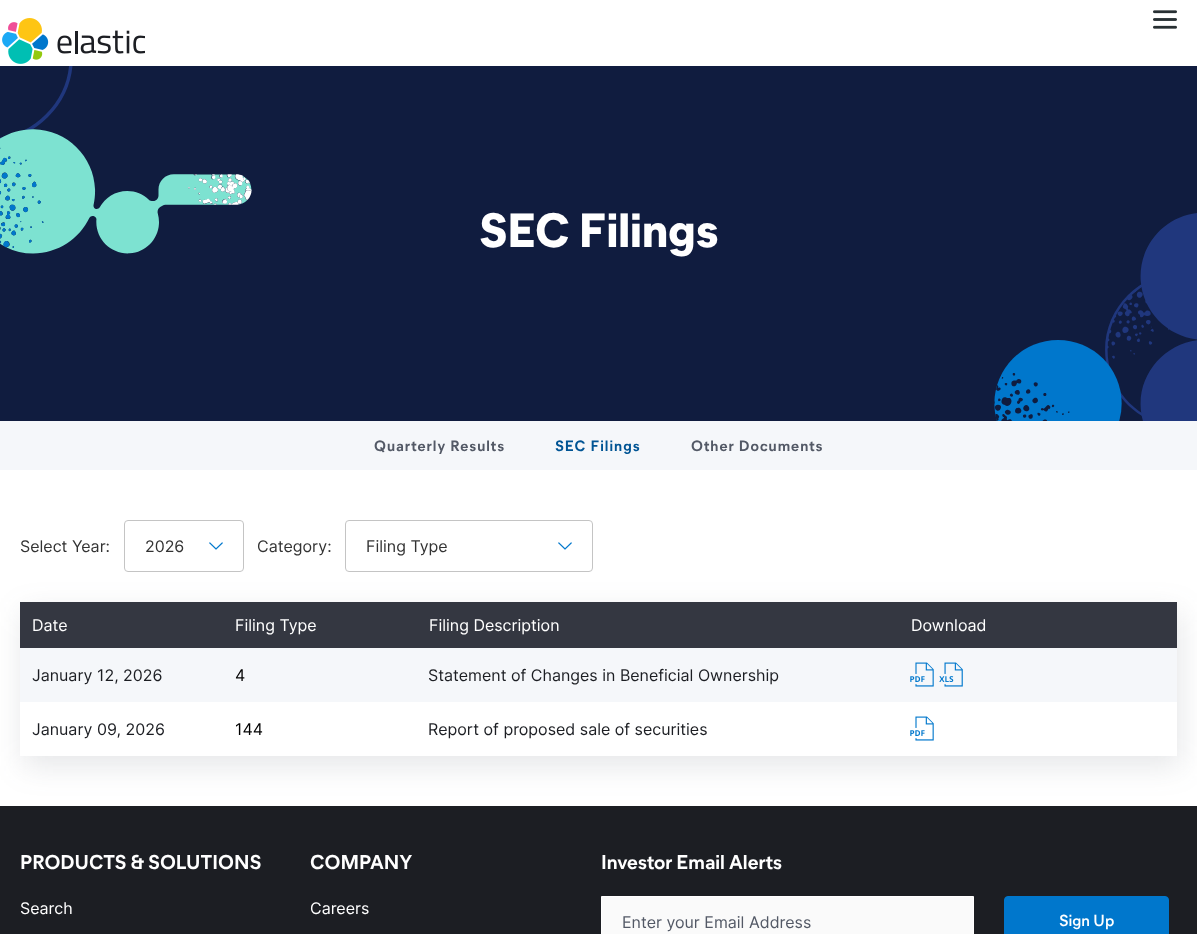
(async () => {
  const canvas = document.querySelector("canvas");
  canvas.width = 1197;
  canvas.height = 934;
  const ctx = canvas.getContext("2d");
  ctx.miterLimit = 4;
  ctx.fontKerning = "normal";
  async function loadImage(src) {
    const img = new Image();
    img.src = src;
    await img.decode();
    return img;
  }
  let path;

  ctx.fillStyle = "#ffffff";
  ctx.fillRect(0, 0, 1197, 934);
  ctx.drawImage(await loadImage("img/1.png"), 2, 18, 143, 46);
  ctx.drawImage(await loadImage("img/2.png"), 1153, 10, 24, 19);
  ctx.drawImage(await loadImage("img/3.png"), 0, 66, 1197, 355);
  ctx.fillStyle = "#f5f7fa";
  ctx.fillRect(0, 421, 1197, 49);
  ctx.drawImage(await loadImage("img/4.png"), 209, 542, 14, 8);
  ctx.save();
  path = new Path2D("M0 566H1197V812H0ZM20 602H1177V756H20Z");
  ctx.clip(path, "evenodd");
  ctx.fillStyle = "rgba(83, 89, 102, 0.15)";
  ctx.filter = "blur(15px)";
  ctx.beginPath();
  ctx.rect(23, 612, 1157, 154);
  ctx.fill();
  ctx.filter = "none";
  ctx.restore();
  ctx.beginPath();
  ctx.roundRect(124.5, 520.5, 119, 51, 3.5);
  ctx.strokeStyle = "#c4c4c4";
  ctx.stroke();
  ctx.drawImage(await loadImage("img/4.png"), 558, 542, 14, 8);
  ctx.beginPath();
  ctx.roundRect(345.5, 520.5, 247, 51, 3.5);
  ctx.stroke();
  ctx.fillStyle = "#343741";
  ctx.fillRect(20, 602, 1157, 46);
  ctx.fillStyle = "#f5f7fa";
  ctx.fillRect(20, 648, 1157, 54);
  ctx.drawImage(await loadImage("img/5.png"), 910, 662, 24, 25);
  ctx.drawImage(await loadImage("img/6.png"), 939, 662, 24, 25);
  ctx.drawImage(await loadImage("img/7.png"), 910, 716, 24, 25);
  ctx.fillStyle = "#1c1e23";
  ctx.fillRect(0, 806, 1197, 128);
  ctx.fillStyle = "#fafafa";
  ctx.beginPath();
  ctx.rect(601.5, 896.5, 372, 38);
  ctx.fill();
  ctx.strokeStyle = "#ffffff";
  ctx.stroke();
  ctx.fillStyle = "#0077cc";
  ctx.beginPath();
  ctx.roundRect(1004.5, 896.5, 164, 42, 3.5);
  ctx.fill();
  ctx.strokeStyle = "#0077cc";
  ctx.stroke();
  ctx.font = "bold 48px 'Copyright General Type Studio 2'";
  ctx.fillStyle = "#ffffff";
  ctx.fillText("SEC Filings", 479, 247);
  ctx.letterSpacing = "1px";
  ctx.font = "bold 15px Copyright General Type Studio";
  ctx.fillStyle = "#535966";
  ctx.fillText("Quarterly Results", 374, 451);
  ctx.fillStyle = "#005494";
  ctx.fillText("SEC Filings", 555, 451);
  ctx.fillStyle = "#535966";
  ctx.fillText("Other Documents", 691, 451);
  ctx.letterSpacing = "0px";
  ctx.font = "16px Inter";
  ctx.fillStyle = "#333333";
  for (const [text, x, y] of [
    ["Select Year:", 20, 552],
    ["2026", 145, 552],
    ["Category:", 257, 552],
    ["Filing Type", 366, 552],
  ]) {
    ctx.fillText(text, x, y);
  }
  ctx.fillStyle = "#ffffff";
  for (const [text, x, y] of [
    ["Date", 32, 631],
    ["Filing Type", 235, 631],
    ["Filing Description", 429, 631],
    ["Download", 911, 631],
  ]) {
    ctx.fillText(text, x, y);
  }
  ctx.fillStyle = "#1c1e23";
  ctx.fillText("January 12, 2026", 32, 681);
  ctx.fillStyle = "#000000";
  ctx.fillText("4", 235, 681);
  ctx.fillStyle = "#1c1e23";
  ctx.fillText("Statement of Changes in Beneficial Ownership", 428, 681);
  ctx.fillText("January 09, 2026", 32, 735);
  ctx.fillStyle = "#000000";
  ctx.fillText("144", 235, 735);
  ctx.fillStyle = "#1c1e23";
  ctx.fillText("Report of proposed sale of securities", 428, 735);
  ctx.font = "bold 20px Copyright General Type Studio";
  ctx.fillStyle = "#ffffff";
  ctx.fillText("PRODUCTS & SOLUTIONS", 20, 869);
  ctx.font = "16px Inter";
  ctx.fillText("Search", 20, 914);
  ctx.font = "bold 20px Copyright General Type Studio";
  ctx.fillText("COMPANY", 310, 869);
  ctx.font = "16px Inter";
  ctx.fillText("Careers", 310, 914);
  ctx.font = "bold 20px Copyright General Type Studio";
  ctx.fillText("Investor Email Alerts", 601, 869);
  ctx.font = "16px Inter";
  ctx.fillStyle = "#535966";
  ctx.fillText("Enter your Email Address", 622, 928);
  ctx.font = "600 16px Copyright General Type Studio";
  ctx.fillStyle = "#ffffff";
  ctx.fillText("Sign Up", 1059, 926);
})();
